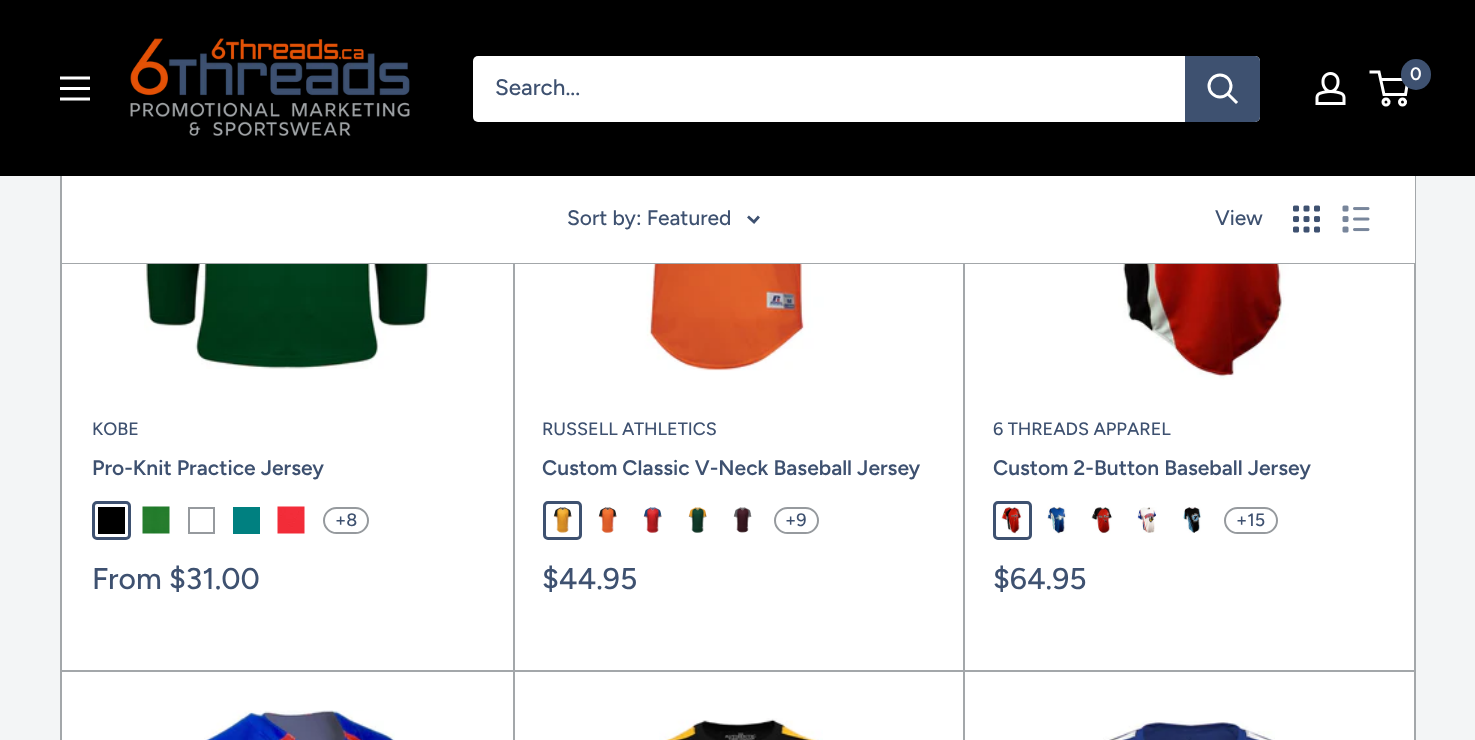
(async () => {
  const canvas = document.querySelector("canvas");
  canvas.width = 1475;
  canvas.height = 740;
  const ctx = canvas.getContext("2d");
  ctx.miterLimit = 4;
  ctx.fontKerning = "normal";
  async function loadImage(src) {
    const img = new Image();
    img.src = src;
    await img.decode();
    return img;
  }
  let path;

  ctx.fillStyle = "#f3f5f6";
  ctx.fillRect(0, 0, 1475, 740);
  ctx.strokeStyle = "#a3a7aa";
  ctx.lineWidth = 2;
  ctx.strokeRect(61, -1, 1354, 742);
  ctx.fillStyle = "#ffffff";
  ctx.fillRect(62, 264, 1352, 476);
  ctx.fillStyle = "#a3a7aa";
  ctx.fillRect(62, 670, 451, 2);
  ctx.drawImage(await loadImage("img/6.png"), 144, 264, 287, 105);
  ctx.fillStyle = "#000000";
  ctx.fillRect(98, 507, 27, 27);
  ctx.beginPath();
  ctx.roundRect(93.5, 502.5, 36, 36, 3.5);
  ctx.strokeStyle = "#3e5170";
  ctx.lineWidth = 3;
  ctx.stroke();
  ctx.drawImage(await loadImage("img/7.png"), 142, 506, 28, 28);
  ctx.strokeStyle = "#969a9e";
  ctx.lineWidth = 2;
  ctx.strokeRect(189, 508, 25, 25);
  ctx.fillStyle = "#008080";
  ctx.fillRect(233, 507, 27, 27);
  ctx.drawImage(await loadImage("img/8.png"), 277, 506, 28, 28);
  ctx.beginPath();
  ctx.roundRect(324, 508, 44, 25, 12.5);
  ctx.stroke();
  ctx.drawImage(await loadImage("img/9.png"), 619, 264, 236, 107);
  ctx.drawImage(await loadImage("img/10.png"), 553, 507, 19, 26);
  ctx.beginPath();
  ctx.roundRect(544.5, 502.5, 36, 36, 3.5);
  ctx.strokeStyle = "#3e5170";
  ctx.lineWidth = 3;
  ctx.stroke();
  ctx.drawImage(await loadImage("img/11.png"), 598, 507, 19, 26);
  ctx.drawImage(await loadImage("img/12.png"), 643, 507, 19, 26);
  ctx.drawImage(await loadImage("img/13.png"), 688, 507, 19, 26);
  ctx.drawImage(await loadImage("img/14.png"), 733, 507, 19, 26);
  ctx.beginPath();
  ctx.roundRect(775, 508, 43, 25, 12.5);
  ctx.strokeStyle = "#969a9e";
  ctx.lineWidth = 2;
  ctx.stroke();
  ctx.drawImage(await loadImage("img/15.png"), 1035, 264, 282, 116);
  ctx.drawImage(await loadImage("img/16.png"), 1001, 506, 22, 28);
  ctx.beginPath();
  ctx.roundRect(994.5, 502.5, 36, 36, 3.5);
  ctx.strokeStyle = "#3e5170";
  ctx.lineWidth = 3;
  ctx.stroke();
  ctx.drawImage(await loadImage("img/17.png"), 1047, 506, 20, 28);
  ctx.drawImage(await loadImage("img/18.png"), 1091, 507, 22, 27);
  ctx.drawImage(await loadImage("img/19.png"), 1137, 507, 20, 26);
  ctx.drawImage(await loadImage("img/20.png"), 1183, 507, 19, 26);
  ctx.beginPath();
  ctx.roundRect(1225, 508, 52, 25, 12.5);
  ctx.strokeStyle = "#969a9e";
  ctx.lineWidth = 2;
  ctx.stroke();
  ctx.drawImage(await loadImage("img/21.png"), 204, 710, 191, 30);
  ctx.drawImage(await loadImage("img/22.png"), 659, 718, 164, 22);
  ctx.drawImage(await loadImage("img/23.png"), 1103, 720, 172, 20);
  ctx.font = "500 18px Figtree";
  ctx.fillStyle = "#3e5170";
  ctx.fillText("KOBE", 92, 435);
  ctx.font = "600 21px Figtree";
  ctx.fillText("Pro-Knit Practice Jersey", 92, 475);
  ctx.font = "500 18px Figtree";
  ctx.fillText("+8", 335, 526);
  ctx.font = "500 30px Figtree";
  ctx.fillText("From $31.00", 92, 589);
  ctx.fillStyle = "#a3a7aa";
  path = new Path2D("M63 670V671H515V-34H513V670Z");
  ctx.fill(path);
  ctx.fillRect(513, 670, 450, 2);
  ctx.font = "500 18px Figtree";
  ctx.fillStyle = "#3e5170";
  ctx.fillText("RUSSELL ATHLETICS", 542, 435);
  ctx.font = "600 21px Figtree";
  ctx.fillText("Custom Classic V-Neck Baseball Jersey", 542, 475);
  ctx.font = "500 18px Figtree";
  ctx.fillText("+9", 785, 526);
  ctx.font = "500 30px Figtree";
  ctx.fillText("$44.95", 542, 589);
  ctx.fillStyle = "#a3a7aa";
  path = new Path2D("M515 670V671H965V-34H963V670Z");
  ctx.fill(path);
  ctx.font = "500 18px Figtree";
  ctx.fillStyle = "#3e5170";
  ctx.fillText("6 THREADS APPAREL", 993, 435);
  ctx.font = "600 21px Figtree";
  ctx.fillText("Custom 2-Button Baseball Jersey", 993, 475);
  ctx.font = "500 18px Figtree";
  ctx.fillText("+15", 1236, 526);
  ctx.font = "500 30px Figtree";
  ctx.fillText("$64.95", 993, 589);
  ctx.fillStyle = "#a3a7aa";
  path = new Path2D("M963 670V672H1415V-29L1414-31V670Z");
  ctx.fill(path);
  ctx.fillStyle = "#000000";
  ctx.fillRect(0, 0, 1475, 176);
  path = new Path2D("M1380.5 79.5H1408L1405.5 94.5H1384L1379 72H1369.5");
  ctx.strokeStyle = "#ffffff";
  ctx.lineWidth = 3;
  ctx.stroke(path);
  ctx.fillStyle = "#3e5170";
  ctx.beginPath();
  ctx.roundRect(1401, 59, 30, 31, 15);
  ctx.fill();
  ctx.font = "600 18px Figtree";
  ctx.fillStyle = "#ffffff";
  ctx.fillText("0", 1410, 80);
  ctx.beginPath();
  ctx.roundRect(473, 56, 787, 66, 5);
  ctx.fill();
  ctx.fillStyle = "#3e5170";
  ctx.beginPath();
  ctx.roundRect(1185, 56, 75, 66, [0, 5, 5, 0]);
  ctx.fill();
  path = new Path2D("M1236 102L1228.5 94.5");
  ctx.lineCap = "square";
  ctx.stroke(path);
  ctx.beginPath();
  ctx.arc(1220, 86, 11, 0, Math.PI * 2);
  ctx.stroke();
  ctx.font = "500 22.5px Figtree";
  ctx.fillText("Search...", 495, 95);
  ctx.beginPath();
  ctx.arc(1402.5, 102, 3, 0, Math.PI * 2);
  ctx.stroke();
  ctx.beginPath();
  ctx.arc(1386, 102, 3, 0, Math.PI * 2);
  ctx.stroke();
  ctx.drawImage(await loadImage("img/2.png"), 1315, 72, 31, 33);
  ctx.drawImage(await loadImage("img/3.png"), 60, 76, 30, 25);
  ctx.drawImage(await loadImage("img/1.png"), 130, 38, 280, 98);
  ctx.fillStyle = "#a3a7aa";
  path = new Path2D("M62 262V264H1415V177H1414V262Z");
  ctx.fill(path);
  ctx.fillStyle = "#ffffff";
  ctx.fillRect(62, 176, 1353, 87);
  ctx.drawImage(await loadImage("img/5.png"), 1342, 205, 28, 28);
  path = new Path2D("M758 217.5L754 222L749 217.5");
  ctx.strokeStyle = "#3e5170";
  ctx.lineWidth = 2.8;
  ctx.stroke(path);
  ctx.font = "500 21px Figtree";
  ctx.fillStyle = "#3e5170";
  ctx.fillText("Sort by: Featured", 567, 225);
  ctx.drawImage(await loadImage("img/4.png"), 1293, 205, 27, 28);
  ctx.fillText("View", 1215, 225);
  ctx.fillStyle = "#a3a7aa";
  path = new Path2D("M63 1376H515V671H513V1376Z");
  ctx.fill(path);
  path = new Path2D("M515 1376H965V671H963V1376Z");
  ctx.fill(path);
})();
